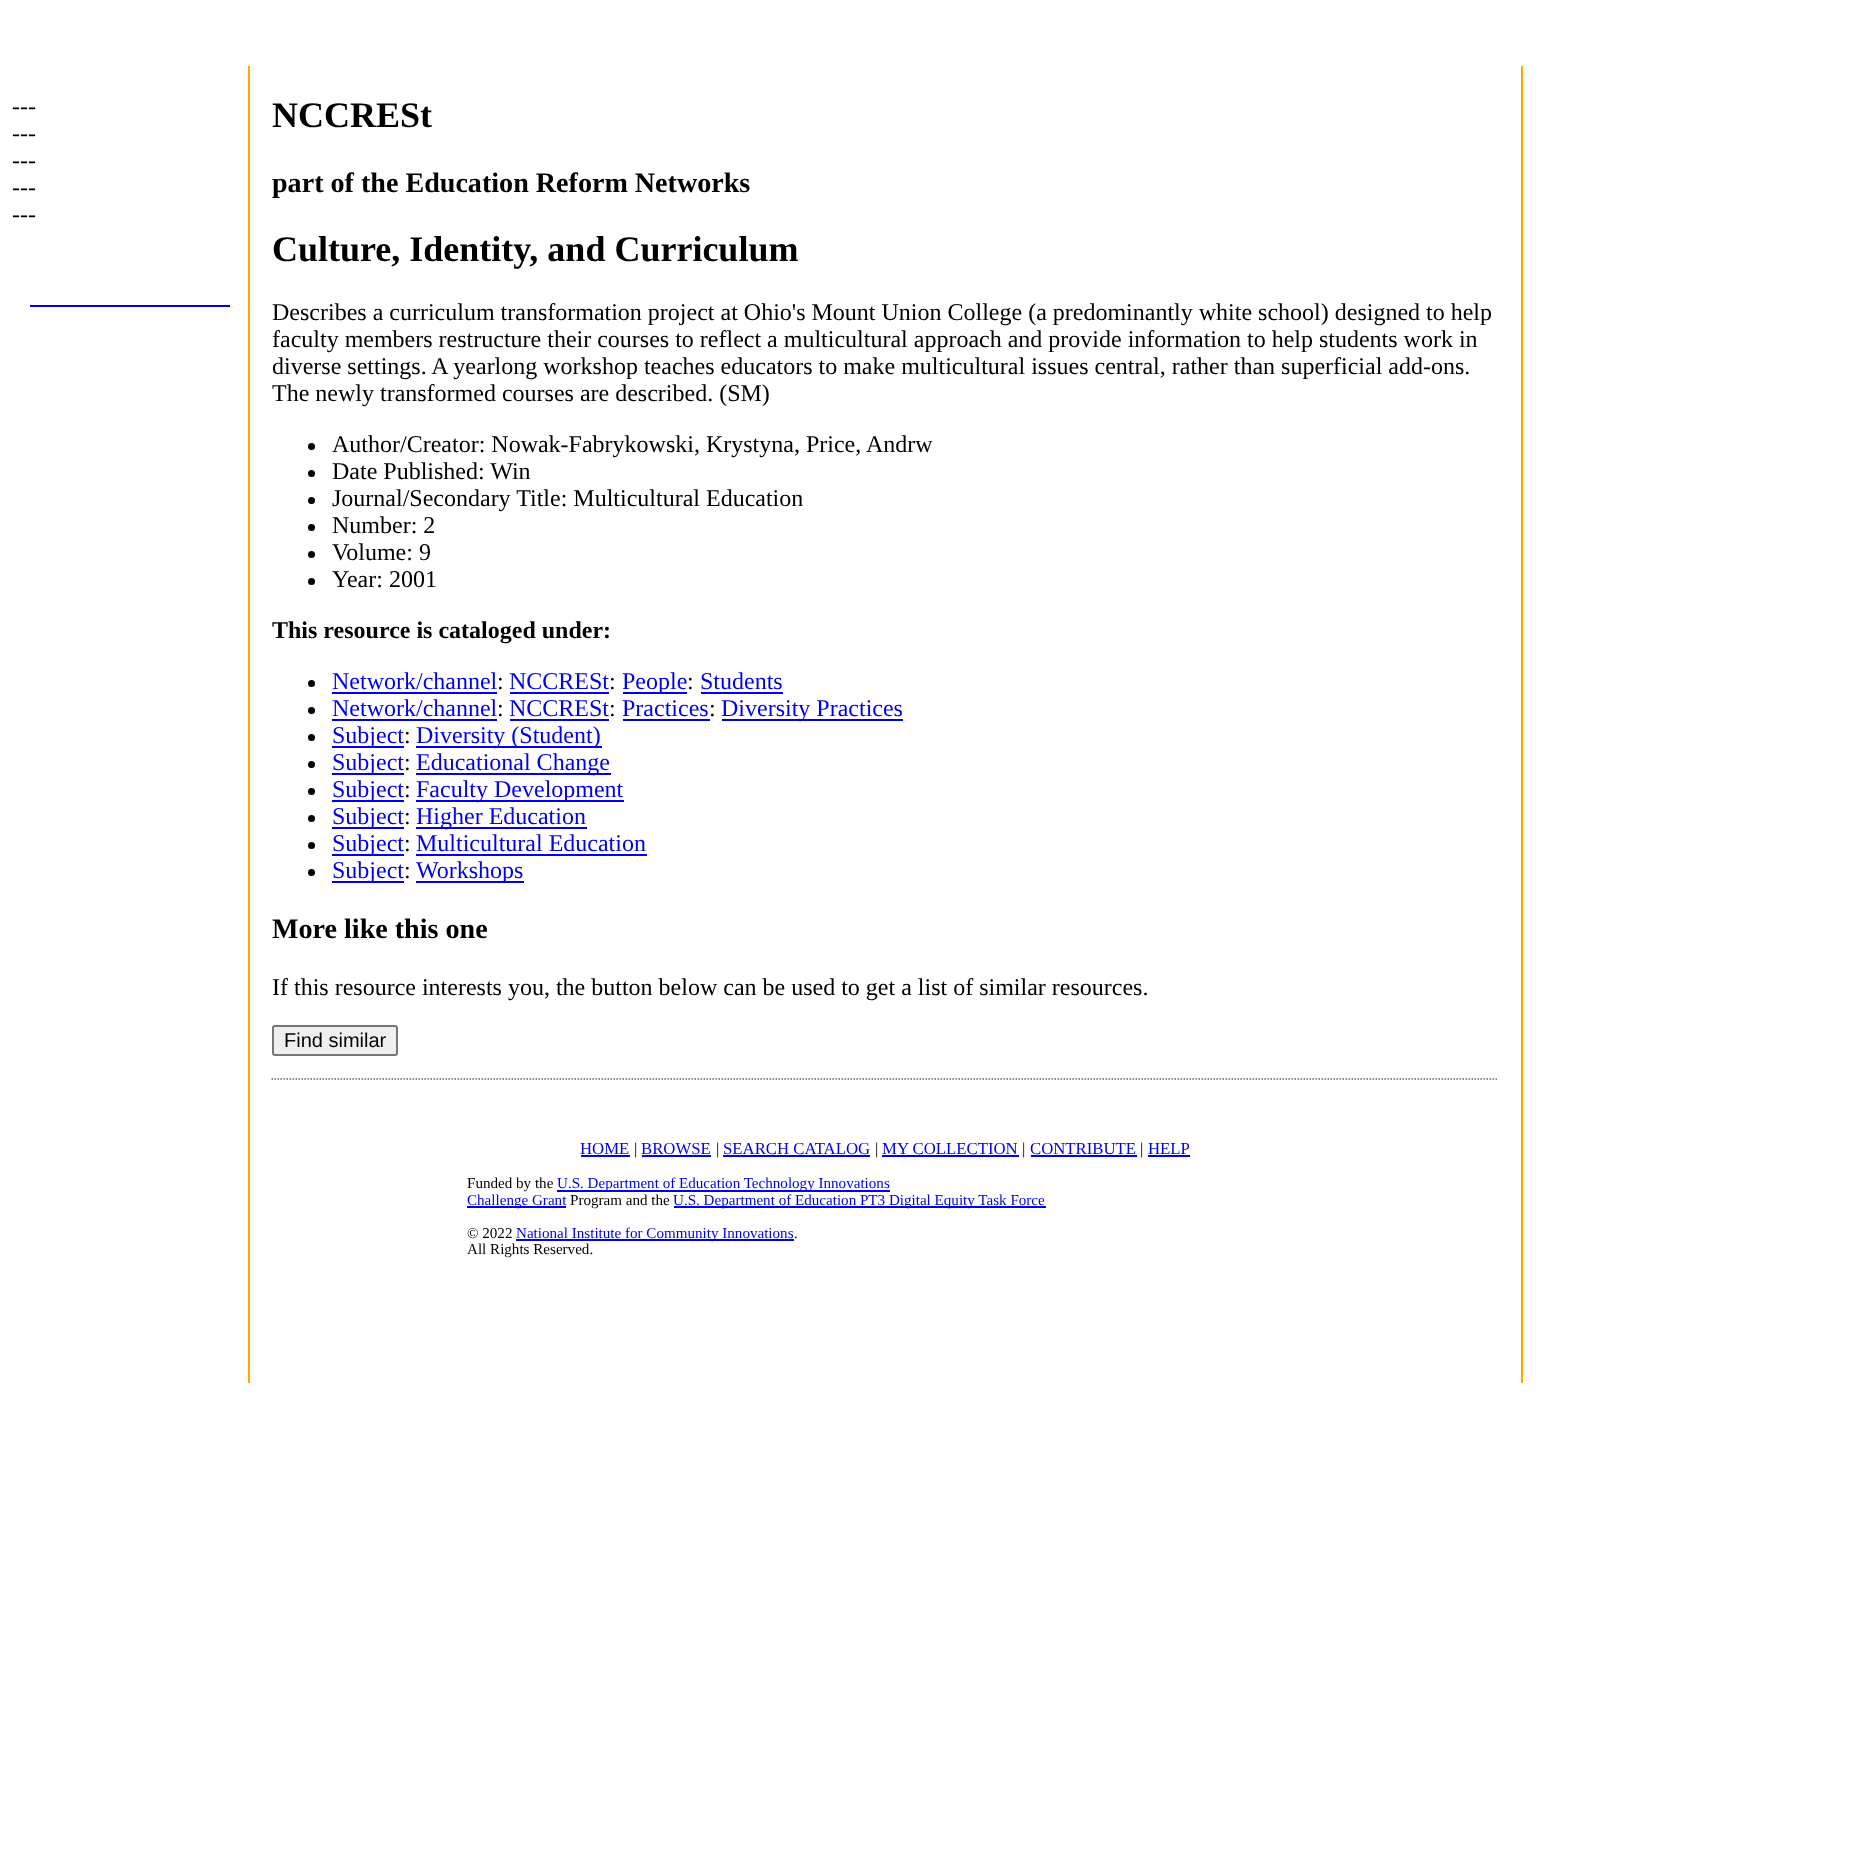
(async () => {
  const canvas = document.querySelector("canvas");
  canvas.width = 1859;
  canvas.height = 1857;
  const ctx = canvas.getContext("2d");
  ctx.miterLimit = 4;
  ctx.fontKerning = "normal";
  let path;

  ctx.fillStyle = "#ffffff";
  ctx.fillRect(0, 0, 1859, 1857);
  for (const [x, y, w, h, color] of [
    [30, 305, 200, 2, "#0000ee"],
    [1521, 66, 2, 1317, "#ffa901"],
    [248, 66, 2, 1317, "#ffa901"],
  ]) {
    ctx.fillStyle = color;
    ctx.fillRect(x, y, w, h);
  }
  ctx.fillStyle = "#000000";
  ctx.beginPath();
  ctx.arc(311.5, 446.5, 3.5, 0, Math.PI * 2);
  ctx.fill();
  ctx.beginPath();
  ctx.arc(311.5, 473.5, 3.5, 0, Math.PI * 2);
  ctx.fill();
  ctx.beginPath();
  ctx.arc(311.5, 500.5, 3.5, 0, Math.PI * 2);
  ctx.fill();
  ctx.beginPath();
  ctx.arc(311.5, 527.5, 3.5, 0, Math.PI * 2);
  ctx.fill();
  ctx.beginPath();
  ctx.arc(311.5, 554.5, 3.5, 0, Math.PI * 2);
  ctx.fill();
  ctx.beginPath();
  ctx.arc(311.5, 581.5, 3.5, 0, Math.PI * 2);
  ctx.fill();
  ctx.beginPath();
  ctx.arc(311.5, 683.5, 3.5, 0, Math.PI * 2);
  ctx.fill();
  for (const [x, y, w, h, color] of [
    [332, 692, 165, 2, "#0000ee"],
    [510, 692, 99, 2, "#0000ee"],
    [623, 692, 64, 2, "#0000ee"],
    [701, 692, 82, 2, "#0000ee"],
  ]) {
    ctx.fillStyle = color;
    ctx.fillRect(x, y, w, h);
  }
  ctx.fillStyle = "#000000";
  ctx.beginPath();
  ctx.arc(311.5, 710.5, 3.5, 0, Math.PI * 2);
  ctx.fill();
  for (const [x, y, w, h, color] of [
    [332, 719, 165, 2, "#0000ee"],
    [510, 719, 99, 2, "#0000ee"],
    [623, 719, 87, 2, "#0000ee"],
    [722, 719, 181, 2, "#0000ee"],
  ]) {
    ctx.fillStyle = color;
    ctx.fillRect(x, y, w, h);
  }
  ctx.fillStyle = "#000000";
  ctx.beginPath();
  ctx.arc(311.5, 737.5, 3.5, 0, Math.PI * 2);
  ctx.fill();
  ctx.fillStyle = "#0000ee";
  ctx.fillRect(332, 746, 72, 2);
  ctx.fillRect(416, 746, 186, 2);
  ctx.fillStyle = "#000000";
  ctx.beginPath();
  ctx.arc(311.5, 764.5, 3.5, 0, Math.PI * 2);
  ctx.fill();
  ctx.fillStyle = "#0000ee";
  ctx.fillRect(332, 773, 72, 2);
  ctx.fillRect(416, 773, 195, 2);
  ctx.fillStyle = "#000000";
  ctx.beginPath();
  ctx.arc(311.5, 791.5, 3.5, 0, Math.PI * 2);
  ctx.fill();
  ctx.fillStyle = "#0000ee";
  ctx.fillRect(332, 800, 72, 2);
  ctx.fillRect(416, 800, 208, 2);
  ctx.fillStyle = "#000000";
  ctx.beginPath();
  ctx.arc(311.5, 818.5, 3.5, 0, Math.PI * 2);
  ctx.fill();
  ctx.fillStyle = "#0000ee";
  ctx.fillRect(332, 827, 72, 2);
  ctx.fillRect(416, 827, 171, 2);
  ctx.fillStyle = "#000000";
  ctx.beginPath();
  ctx.arc(311.5, 845.5, 3.5, 0, Math.PI * 2);
  ctx.fill();
  ctx.fillStyle = "#0000ee";
  ctx.fillRect(332, 854, 72, 2);
  ctx.fillRect(416, 854, 231, 2);
  ctx.fillStyle = "#000000";
  ctx.beginPath();
  ctx.arc(311.5, 872.5, 3.5, 0, Math.PI * 2);
  ctx.fill();
  ctx.fillStyle = "#0000ee";
  ctx.fillRect(332, 881, 72, 2);
  ctx.fillRect(416, 881, 108, 2);
  ctx.fillStyle = "#efefef";
  ctx.beginPath();
  ctx.roundRect(273, 1026, 124, 29, 2);
  ctx.fill();
  ctx.strokeStyle = "#767676";
  ctx.lineWidth = 2;
  ctx.stroke();
  path = new Path2D("M271.5 1079H1498.5");
  ctx.strokeStyle = "#666666";
  ctx.lineWidth = 1.5;
  ctx.setLineDash([1.5, 1.5]);
  ctx.stroke(path);
  for (const [x, y, w, h, color] of [
    [581, 1155, 49, 2, "#0000ee"],
    [642, 1155, 69, 2, "#0000ee"],
    [723, 1155, 147, 2, "#0000ee"],
    [882, 1155, 137, 2, "#0000ee"],
    [1031, 1155, 106, 2, "#0000ee"],
    [1148, 1155, 42, 2, "#0000ee"],
    [557, 1190, 333, 2, "#0000ee"],
    [467, 1206, 99, 2, "#0000ee"],
    [674, 1206, 372, 2, "#0000ee"],
    [516, 1239, 278, 2, "#0000ee"],
  ]) {
    ctx.fillStyle = color;
    ctx.fillRect(x, y, w, h);
  }
  ctx.font = "24px Liberation Serif";
  ctx.fillStyle = "#000000";
  for (const [text, x, y] of [
    ["---", 12, 114],
    ["---", 12, 141],
    ["---", 12, 168],
    ["---", 12, 195],
    ["---", 12, 222],
  ]) {
    ctx.fillText(text, x, y);
  }
  ctx.font = "bold 36px Liberation Serif";
  ctx.fillText("NCCRESt", 272, 127);
  ctx.font = "bold 28.1px Liberation Serif";
  ctx.fillText("part of the Education Reform Networks", 272, 192);
  ctx.font = "bold 36px Liberation Serif";
  ctx.fillText("Culture, Identity, and Curriculum", 272, 261);
  ctx.font = "24px Liberation Serif";
  for (const [text, x, y] of [
    ["Describes a curriculum transformation project at Ohio's Mount Union College (a predominantly white school) designed to help", 272, 320],
    ["faculty members restructure their courses to reflect a multicultural approach and provide information to help students work in", 272, 347],
    ["diverse settings. A yearlong workshop teaches educators to make multicultural issues central, rather than superficial add-ons.", 272, 374],
    ["The newly transformed courses are described. (SM)", 272, 401],
    ["Author/Creator: Nowak-Fabrykowski, Krystyna, Price, Andrw", 332, 452],
    ["Date Published: Win", 332, 479],
    ["Journal/Secondary Title: Multicultural Education", 332, 506],
    ["Number: 2", 332, 533],
    ["Volume: 9", 332, 560],
    ["Year: 2001", 332, 587],
  ]) {
    ctx.fillText(text, x, y);
  }
  ctx.font = "bold 24px Liberation Serif";
  ctx.fillText("This resource is cataloged under:", 272, 638);
  ctx.font = "24px Liberation Serif";
  ctx.fillStyle = "#0000ee";
  ctx.fillText("Network/channel", 332, 689);
  ctx.fillStyle = "#000000";
  ctx.fillText(":", 497, 689);
  ctx.fillStyle = "#0000ee";
  ctx.fillText("NCCRESt", 509, 689);
  ctx.fillStyle = "#000000";
  ctx.fillText(":", 609, 689);
  ctx.fillStyle = "#0000ee";
  ctx.fillText("People", 622, 689);
  ctx.fillStyle = "#000000";
  ctx.fillText(":", 687, 689);
  ctx.fillStyle = "#0000ee";
  ctx.fillText("Students", 700, 689);
  ctx.fillText("Network/channel", 332, 716);
  ctx.fillStyle = "#000000";
  ctx.fillText(":", 497, 716);
  ctx.fillStyle = "#0000ee";
  ctx.fillText("NCCRESt", 509, 716);
  ctx.fillStyle = "#000000";
  ctx.fillText(":", 609, 716);
  ctx.fillStyle = "#0000ee";
  ctx.fillText("Practices", 622, 716);
  ctx.fillStyle = "#000000";
  ctx.fillText(":", 709, 716);
  ctx.fillStyle = "#0000ee";
  ctx.fillText("Diversity Practices", 721, 716);
  ctx.fillText("Subject", 332, 743);
  ctx.fillStyle = "#000000";
  ctx.fillText(":", 404, 743);
  ctx.fillStyle = "#0000ee";
  ctx.fillText("Diversity (Student)", 416, 743);
  ctx.fillText("Subject", 332, 770);
  ctx.fillStyle = "#000000";
  ctx.fillText(":", 404, 770);
  ctx.fillStyle = "#0000ee";
  ctx.fillText("Educational Change", 416, 770);
  ctx.fillText("Subject", 332, 797);
  ctx.fillStyle = "#000000";
  ctx.fillText(":", 404, 797);
  ctx.fillStyle = "#0000ee";
  ctx.fillText("Faculty Development", 416, 797);
  ctx.fillText("Subject", 332, 824);
  ctx.fillStyle = "#000000";
  ctx.fillText(":", 404, 824);
  ctx.fillStyle = "#0000ee";
  ctx.fillText("Higher Education", 416, 824);
  ctx.fillText("Subject", 332, 851);
  ctx.fillStyle = "#000000";
  ctx.fillText(":", 404, 851);
  ctx.fillStyle = "#0000ee";
  ctx.fillText("Multicultural Education", 416, 851);
  ctx.fillText("Subject", 332, 878);
  ctx.fillStyle = "#000000";
  ctx.fillText(":", 404, 878);
  ctx.fillStyle = "#0000ee";
  ctx.fillText("Workshops", 416, 878);
  ctx.font = "bold 28.1px Liberation Serif";
  ctx.fillStyle = "#000000";
  ctx.fillText("More like this one", 272, 938);
  ctx.font = "24px Liberation Serif";
  ctx.fillText("If this resource interests you, the button below can be used to get a list of similar resources.", 272, 995);
  ctx.font = "20px Liberation Sans";
  ctx.fillText("Find similar", 284, 1047);
  ctx.font = "16.75px Liberation Serif";
  ctx.fillStyle = "#0000ee";
  ctx.fillText("HOME", 580, 1154);
  ctx.fillStyle = "#000000";
  ctx.fillText("|", 634, 1154);
  ctx.fillStyle = "#0000ee";
  ctx.fillText("BROWSE", 641, 1154);
  ctx.fillStyle = "#000000";
  ctx.fillText("|", 716, 1154);
  ctx.fillStyle = "#0000ee";
  ctx.fillText("SEARCH CATALOG", 723, 1154);
  ctx.fillStyle = "#000000";
  ctx.fillText("|", 875, 1154);
  ctx.fillStyle = "#0000ee";
  ctx.fillText("MY COLLECTION", 882, 1154);
  ctx.fillStyle = "#000000";
  ctx.fillText("|", 1022, 1154);
  ctx.fillStyle = "#0000ee";
  ctx.fillText("CONTRIBUTE", 1030, 1154);
  ctx.fillStyle = "#000000";
  ctx.fillText("|", 1140, 1154);
  ctx.fillStyle = "#0000ee";
  ctx.fillText("HELP", 1148, 1154);
  ctx.font = "15.1px Liberation Serif";
  ctx.fillStyle = "#000000";
  ctx.fillText("Funded by the", 467, 1188);
  ctx.fillStyle = "#0000ee";
  ctx.fillText("U.S. Department of Education Technology Innovations", 557, 1188);
  ctx.fillText("Challenge Grant", 467, 1205);
  ctx.fillStyle = "#000000";
  ctx.fillText("Program and the", 570, 1205);
  ctx.fillStyle = "#0000ee";
  ctx.fillText("U.S. Department of Education PT3 Digital Equity Task Force", 673, 1205);
  ctx.fillStyle = "#000000";
  ctx.fillText("© 2022", 467, 1238);
  ctx.fillStyle = "#0000ee";
  ctx.fillText("National Institute for Community Innovations", 516, 1238);
  ctx.fillStyle = "#000000";
  ctx.fillText(".", 794, 1238);
  ctx.fillText("All Rights Reserved.", 467, 1254);
})();
